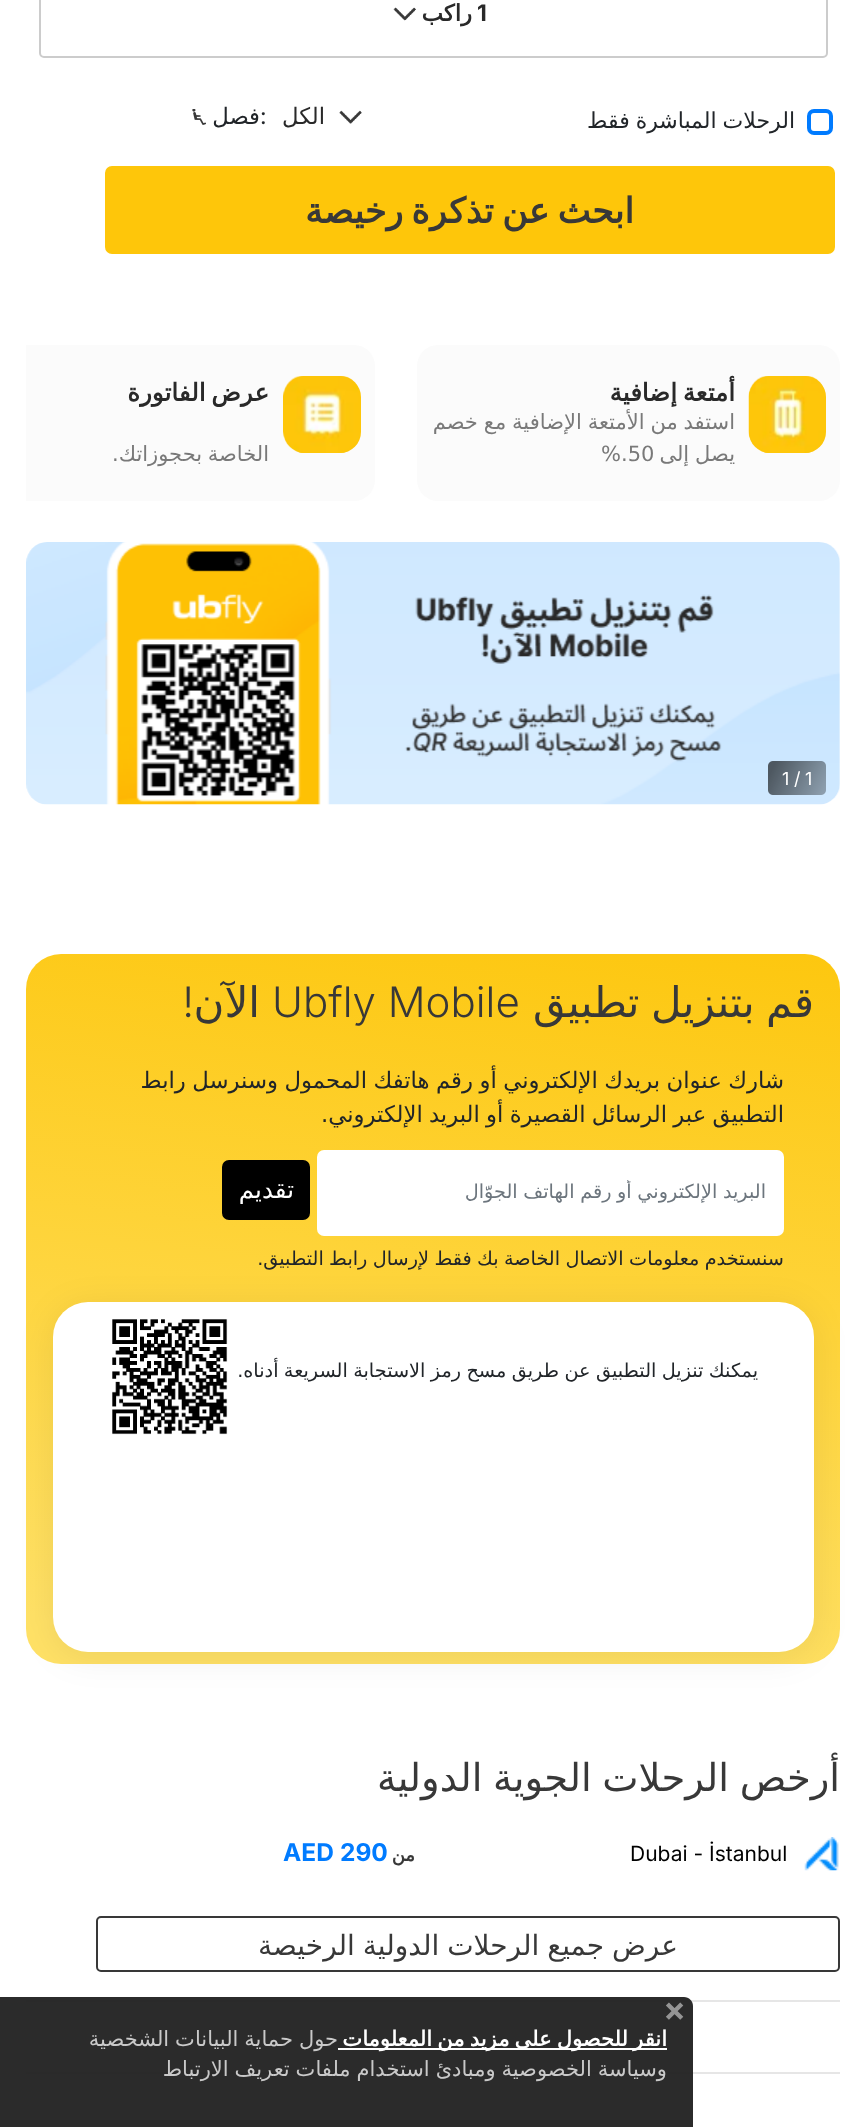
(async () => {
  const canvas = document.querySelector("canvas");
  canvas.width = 865;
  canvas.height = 2127;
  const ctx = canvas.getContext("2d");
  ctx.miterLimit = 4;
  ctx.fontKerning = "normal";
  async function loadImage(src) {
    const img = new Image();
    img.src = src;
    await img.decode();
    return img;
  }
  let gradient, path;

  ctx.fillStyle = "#ffffff";
  ctx.fillRect(0, 0, 865, 2127);
  ctx.beginPath();
  ctx.roundRect(40, -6, 787, 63, 4);
  ctx.strokeStyle = "#cccccc";
  ctx.lineWidth = 2;
  ctx.stroke();
  ctx.drawImage(await loadImage("img/1.png"), 393, 7, 23, 14);
  ctx.beginPath();
  ctx.roundRect(809, 111, 22, 22, 5);
  ctx.strokeStyle = "#007bff";
  ctx.lineWidth = 4;
  ctx.stroke();
  ctx.drawImage(await loadImage("img/2.png"), 339, 110, 23, 14);
  ctx.drawImage(await loadImage("img/3.png"), 192, 109, 14, 16);
  ctx.fillStyle = "#fec60a";
  ctx.beginPath();
  ctx.roundRect(106, 167, 728, 86, 6);
  ctx.fill();
  ctx.strokeStyle = "#fec60a";
  ctx.lineWidth = 2;
  ctx.stroke();
  ctx.fillStyle = "#fbfbfb";
  ctx.beginPath();
  ctx.roundRect(417, 345, 423, 156, 21);
  ctx.fill();
  ctx.fillStyle = "#fec60a";
  ctx.beginPath();
  ctx.roundRect(749, 376, 77, 77, 21);
  ctx.fill();
  ctx.drawImage(await loadImage("img/4.png"), 748, 376, 78, 77);
  ctx.fillStyle = "#fbfbfb";
  ctx.beginPath();
  ctx.roundRect(26, 345, 349, 156, [0, 21, 21, 0]);
  ctx.fill();
  ctx.fillStyle = "#fec60a";
  ctx.beginPath();
  ctx.roundRect(284, 376, 77, 77, 21);
  ctx.fill();
  ctx.drawImage(await loadImage("img/5.png"), 283, 376, 75, 77);
  ctx.drawImage(await loadImage("img/6.png"), 26, 542, 814, 263);
  gradient = ctx.createLinearGradient(485, 907, 381, 1710);
  gradient.addColorStop(0, "#fdc70f");
  gradient.addColorStop(0.94, "#ffe166");
  ctx.fillStyle = gradient;
  ctx.beginPath();
  ctx.roundRect(26, 954, 814, 710, 35);
  ctx.fill();
  ctx.fillStyle = "#ffffff";
  ctx.beginPath();
  ctx.roundRect(317, 1150, 467, 86, 7);
  ctx.fill();
  ctx.fillStyle = "#000000";
  ctx.beginPath();
  ctx.roundRect(223, 1161, 86, 58, 6);
  ctx.fill();
  ctx.strokeStyle = "#000000";
  ctx.stroke();
  ctx.fillStyle = "rgba(0, 0, 0, 0.07)";
  ctx.filter = "blur(17.5px)";
  ctx.beginPath();
  ctx.roundRect(53, 1307, 761, 350, 35);
  ctx.fill();
  ctx.filter = "none";
  ctx.fillStyle = "#ffffff";
  ctx.beginPath();
  ctx.roundRect(53, 1302, 761, 350, 35);
  ctx.fill();
  ctx.drawImage(await loadImage("img/7.png"), 112, 1319, 116, 116);
  ctx.drawImage(await loadImage("img/8.png"), 804, 1837, 35, 34);
  ctx.beginPath();
  ctx.roundRect(97, 1917, 742, 54, 4);
  ctx.strokeStyle = "#383838";
  ctx.stroke();
  ctx.fillStyle = "#e6e6e6";
  ctx.fillRect(26, 2000, 814, 2);
  ctx.fillRect(26, 2072, 814, 2);
  ctx.fillStyle = "rgba(32, 32, 32, 0.95)";
  path = new Path2D("M0 1997H684C689 1997 693 2001 693 2006V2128H0Z");
  ctx.fill(path);
  ctx.fillStyle = "#ffffff";
  ctx.fillRect(338, 2048, 329, 2);
  ctx.font = "bold 22.75px Inter";
  ctx.fillStyle = "#292929";
  ctx.fillText("1", 477, 21);
  ctx.direction = "rtl";
  ctx.font = "bold 22.75px DejaVu Sans";
  ctx.fillText("راكب", 472, 21);
  ctx.wordSpacing = "-1px";
  ctx.font = "22px DejaVu Sans";
  ctx.fillStyle = "#212529";
  ctx.fillText("الرحلات المباشرة فقط", 795, 128);
  ctx.wordSpacing = "0px";
  ctx.font = "22.75px DejaVu Sans";
  ctx.fillStyle = "#292929";
  ctx.fillText("الكل", 325, 124);
  ctx.direction = "ltr";
  ctx.font = "22.75px Inter";
  ctx.fillStyle = "#212529";
  ctx.fillText(":", 260, 124);
  ctx.direction = "rtl";
  ctx.font = "22.75px DejaVu Sans";
  ctx.fillText("فصل", 260, 124);
  ctx.wordSpacing = "-3px";
  ctx.font = "bold 35px DejaVu Sans";
  ctx.fillStyle = "#383838";
  ctx.fillText("ابحث عن تذكرة رخيصة", 634, 223);
  ctx.wordSpacing = "-2px";
  ctx.font = "bold 24.5px DejaVu Sans";
  ctx.fillStyle = "#292929";
  ctx.fillText("أمتعة إضافية", 735, 401);
  ctx.wordSpacing = "-0.75px";
  ctx.font = "21px DejaVu Sans";
  ctx.fillStyle = "#797979";
  ctx.fillText("استفد من الأمتعة الإضافية مع خصم", 735, 429);
  ctx.fillText("يصل إلى", 735, 461);
  ctx.wordSpacing = "0px";
  ctx.direction = "ltr";
  ctx.fillText("%.50", 601, 461);
  ctx.wordSpacing = "-2px";
  ctx.direction = "rtl";
  ctx.font = "bold 24.5px DejaVu Sans";
  ctx.fillStyle = "#292929";
  ctx.fillText("عرض الفاتورة", 269, 401);
  ctx.wordSpacing = "-1px";
  ctx.font = "21px DejaVu Sans";
  ctx.fillStyle = "#797979";
  ctx.fillText("الخاصة بحجوزاتك.", 269, 461);
  ctx.wordSpacing = "0px";
  ctx.direction = "ltr";
  ctx.font = "18px Inter";
  ctx.fillStyle = "#ffffff";
  for (const [text, x, y] of [
    ["1", 805, 785],
    ["/", 794, 785],
    ["1", 782, 785],
  ]) {
    ctx.fillText(text, x, y);
  }
  ctx.wordSpacing = "-2px";
  ctx.direction = "rtl";
  ctx.font = "42px DejaVu Sans";
  ctx.fillStyle = "#383838";
  ctx.fillText("قم بتنزيل تطبيق", 814, 1017);
  ctx.wordSpacing = "0px";
  ctx.direction = "ltr";
  ctx.font = "300 42px Inter";
  ctx.fillText("Ubfly Mobile", 272, 1017);
  ctx.direction = "rtl";
  ctx.font = "42px DejaVu Sans";
  ctx.fillText("الآن", 260, 1017);
  ctx.font = "300 42px Inter";
  ctx.fillText("!", 194, 1017);
  ctx.wordSpacing = "-0.75px";
  ctx.font = "22.75px DejaVu Sans";
  ctx.fillStyle = "#212529";
  ctx.fillText("شارك عنوان بريدك الإلكتروني أو رقم هاتفك المحمول وسنرسل رابط", 784, 1088);
  ctx.wordSpacing = "-1px";
  ctx.fillText("التطبيق عبر الرسائل القصيرة أو البريد الإلكتروني.", 784, 1122);
  ctx.save();
  ctx.beginPath();
  ctx.rect(334, 1180, 433, 24);
  ctx.clip();
  ctx.wordSpacing = "-0.5px";
  ctx.font = "19.25px DejaVu Sans";
  ctx.fillStyle = "#6c757d";
  ctx.fillText("البريد الإلكتروني أو رقم الهاتف الجوّال", 766, 1198);
  ctx.restore();
  ctx.wordSpacing = "0px";
  ctx.font = "24.5px DejaVu Sans";
  ctx.fillStyle = "#ffffff";
  ctx.fillText("تقديم", 294, 1198);
  ctx.wordSpacing = "-0.75px";
  ctx.font = "19.25px DejaVu Sans";
  ctx.fillStyle = "#212529";
  ctx.fillText("سنستخدم معلومات الاتصال الخاصة بك فقط لإرسال رابط التطبيق.", 784, 1265);
  ctx.fillText("يمكنك تنزيل التطبيق عن طريق مسح رمز الاستجابة السريعة أدناه.", 758, 1377);
  ctx.wordSpacing = "-1.5px";
  ctx.font = "38.5px DejaVu Sans";
  ctx.fillStyle = "#383838";
  ctx.fillText("أرخص الرحلات الجوية الدولية", 840, 1791);
  ctx.wordSpacing = "0px";
  ctx.direction = "ltr";
  ctx.font = "21px Inter";
  ctx.fillStyle = "#000000";
  ctx.fillText("Dubai - İstanbul", 630, 1861);
  ctx.direction = "rtl";
  ctx.font = "bold 18px DejaVu Sans";
  ctx.fillStyle = "#383838";
  ctx.fillText("من", 415, 1861);
  ctx.direction = "ltr";
  ctx.font = "bold 24.5px Inter";
  ctx.fillStyle = "#007bff";
  ctx.fillText("290", 340, 1861);
  ctx.fillText("AED", 283, 1861);
  ctx.wordSpacing = "-1px";
  ctx.direction = "rtl";
  ctx.font = "28px DejaVu Sans";
  ctx.fillStyle = "#383838";
  ctx.fillText("عرض جميع الرحلات الدولية الرخيصة", 678, 1955);
  ctx.wordSpacing = "0px";
  ctx.direction = "ltr";
  ctx.font = "bold 34px Inter";
  ctx.fillStyle = "#959595";
  ctx.fillText("×", 663, 2021);
  ctx.wordSpacing = "-1.5px";
  ctx.direction = "rtl";
  ctx.font = "bold 21px DejaVu Sans";
  ctx.fillStyle = "#ffffff";
  ctx.fillText("انقر للحصول على مزيد من المعلومات", 667, 2046);
  ctx.wordSpacing = "-0.75px";
  ctx.font = "21px DejaVu Sans";
  ctx.fillStyle = "#c9c9c9";
  ctx.fillText("حول حماية البيانات الشخصية", 338, 2046);
  ctx.fillText("وسياسة الخصوصية ومبادئ استخدام ملفات تعريف الارتباط", 667, 2076);
})();
